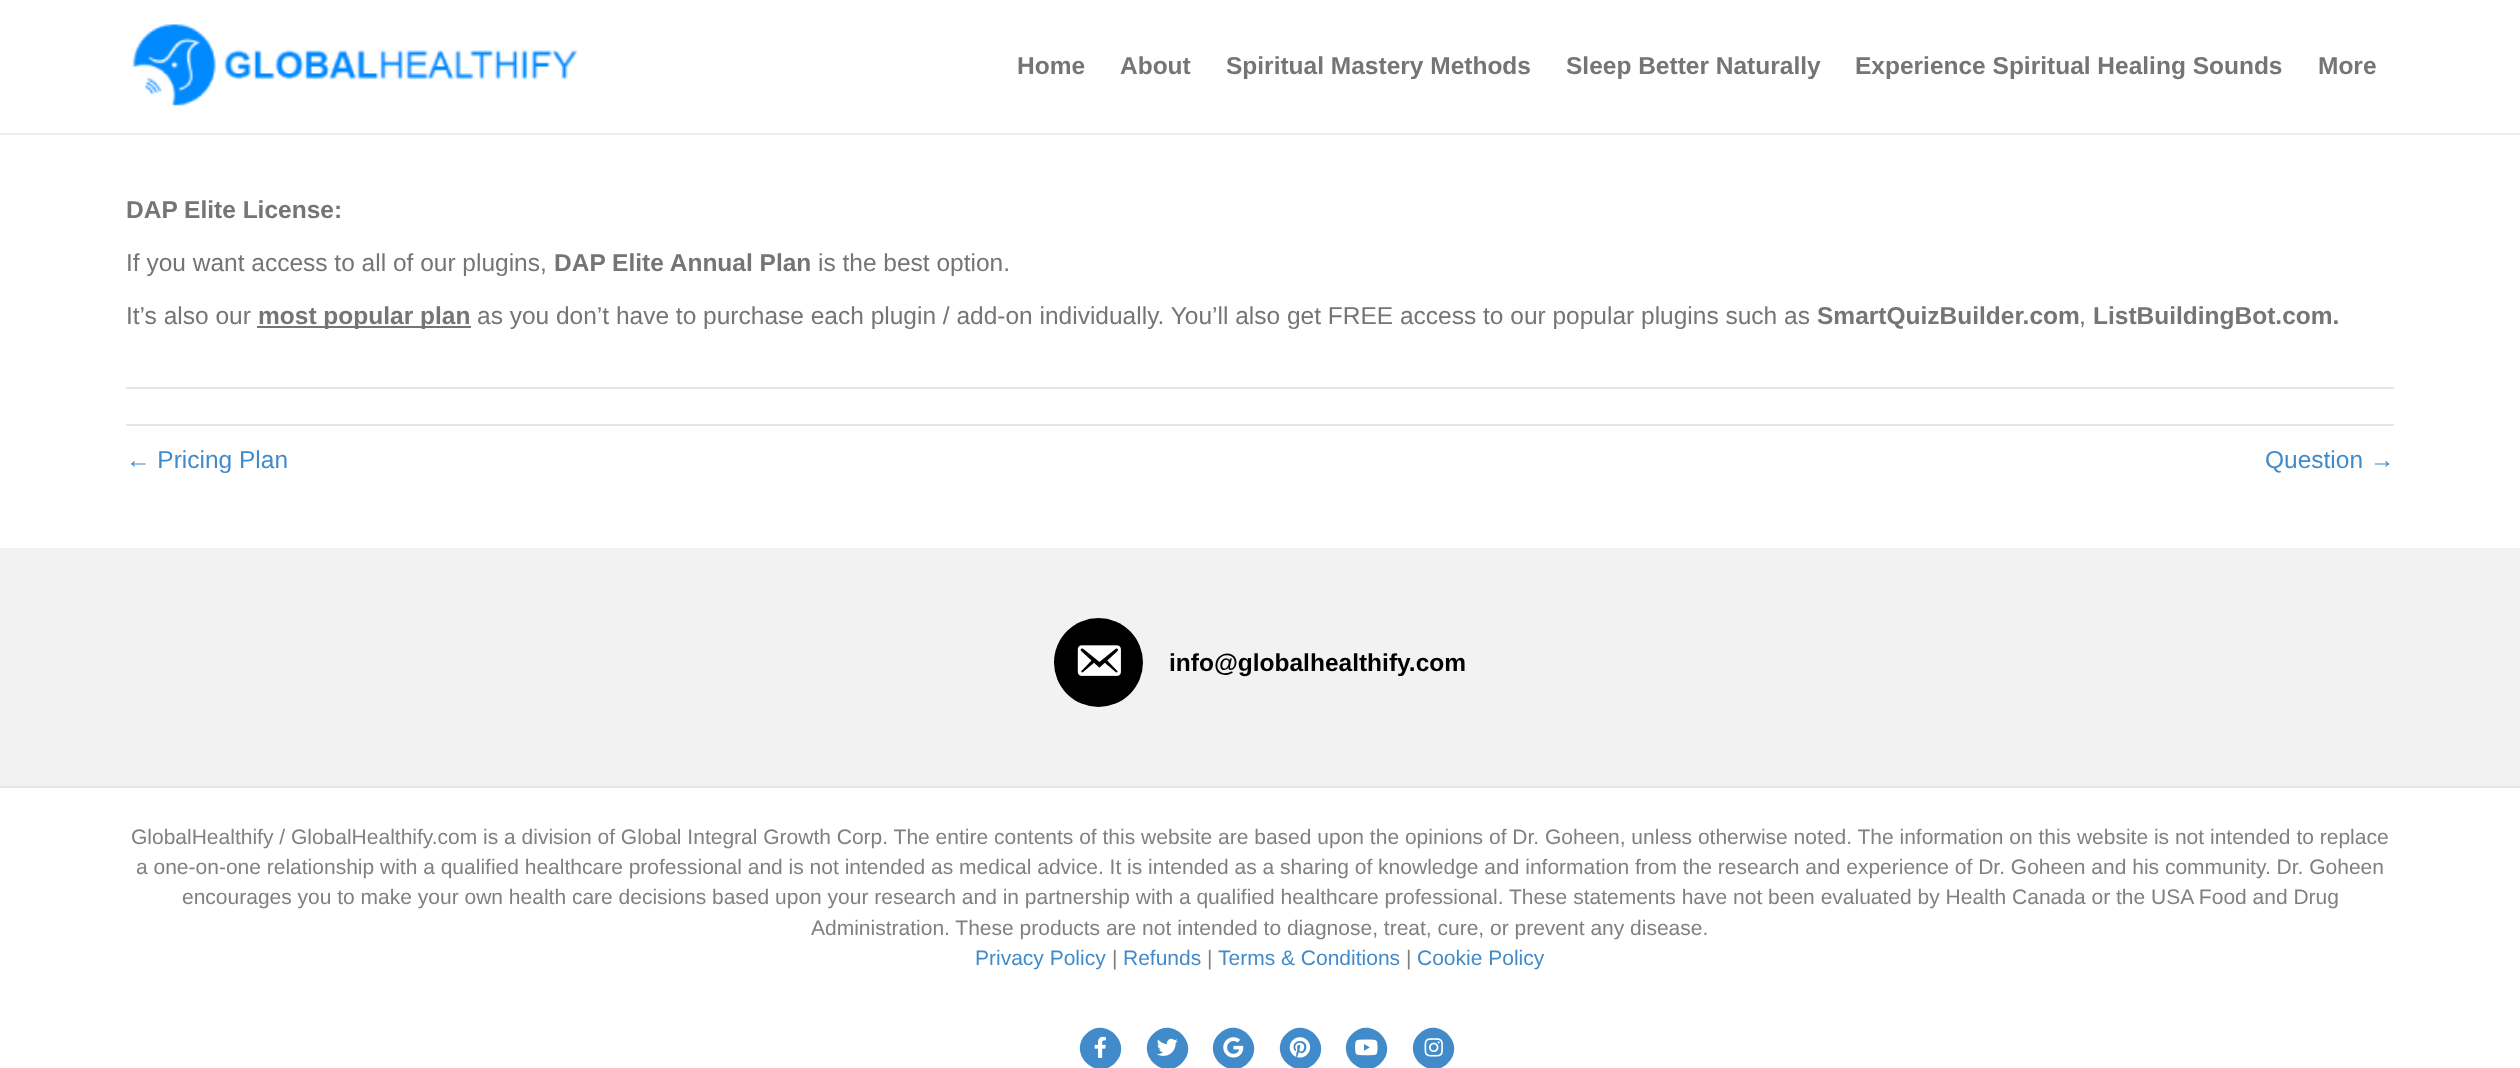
(async () => {
  const canvas = document.querySelector("canvas");
  canvas.width = 2520;
  canvas.height = 1068;
  const ctx = canvas.getContext("2d");
  ctx.miterLimit = 4;
  ctx.fontKerning = "normal";
  async function loadImage(src) {
    const img = new Image();
    img.src = src;
    await img.decode();
    return img;
  }
  let path;

  ctx.fillStyle = "#f2f2f2";
  ctx.fillRect(0, 0, 2520, 1068);
  ctx.fillStyle = "#ffffff";
  ctx.fillRect(0, 0, 2520, 133);
  ctx.fillStyle = "#ededed";
  ctx.fillRect(0, 133, 2520, 2);
  ctx.drawImage(await loadImage("img/1.png"), 132, 24, 446, 82);
  for (const [x, y, w, h, color] of [
    [0, 135, 2520, 413, "#ffffff"],
    [257, 326, 214, 2, "#757575"],
    [126, 387, 2268, 2, "#e6e6e6"],
    [126, 424, 2268, 2, "#e6e6e6"],
  ]) {
    ctx.fillStyle = color;
    ctx.fillRect(x, y, w, h);
  }
  ctx.fillStyle = "#000000";
  ctx.beginPath();
  ctx.arc(1098.5, 662.5, 44.5, 0, Math.PI * 2);
  ctx.fill();
  ctx.drawImage(await loadImage("img/2.png"), 1077, 645, 44, 31);
  ctx.fillStyle = "#ffffff";
  ctx.fillRect(0, 788, 2520, 280);
  ctx.fillStyle = "#e6e6e6";
  ctx.fillRect(0, 786, 2520, 2);
  ctx.fillStyle = "#428bca";
  path = new Path2D("M1086 1034C1105 1015 1134 1044 1115 1063C1096 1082 1067 1053 1086 1034Z");
  ctx.fill(path);
  ctx.drawImage(await loadImage("img/3.png"), 1094, 1036, 12, 22);
  path = new Path2D("M1153 1034C1172 1015 1201 1044 1182 1063C1163 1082 1134 1053 1153 1034Z");
  ctx.fill(path);
  ctx.drawImage(await loadImage("img/4.png"), 1157, 1038, 21, 18);
  path = new Path2D("M1219 1034C1238 1015 1267 1044 1248 1063C1229 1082 1200 1053 1219 1034Z");
  ctx.fill(path);
  ctx.drawImage(await loadImage("img/5.png"), 1223, 1037, 21, 21);
  path = new Path2D("M1286 1034C1305 1015 1334 1044 1315 1063C1296 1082 1267 1053 1286 1034Z");
  ctx.fill(path);
  ctx.drawImage(await loadImage("img/6.png"), 1289, 1037, 22, 21);
  path = new Path2D("M1352 1034C1371 1015 1400 1044 1381 1063C1362 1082 1333 1053 1352 1034Z");
  ctx.fill(path);
  ctx.drawImage(await loadImage("img/7.png"), 1355, 1039, 23, 17);
  path = new Path2D("M1419 1034C1438 1015 1467 1044 1448 1063C1429 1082 1400 1053 1419 1034Z");
  ctx.fill(path);
  ctx.drawImage(await loadImage("img/8.png"), 1424, 1038, 19, 19);
  ctx.font = "bold 24.5px Liberation Sans";
  ctx.fillStyle = "#757575";
  for (const [text, x, y] of [
    ["Home", 1017, 74],
    ["About", 1120, 74],
    ["Spiritual Mastery Methods", 1226, 74],
    ["Sleep Better Naturally", 1566, 74],
    ["Experience Spiritual Healing Sounds", 1855, 74],
    ["More", 2318, 74],
    ["DAP Elite License:", 126, 218],
  ]) {
    ctx.fillText(text, x, y);
  }
  ctx.font = "24.5px Liberation Sans";
  ctx.fillText("If you want access to all of our plugins,", 126, 271);
  ctx.font = "bold 24.5px Liberation Sans";
  ctx.fillText("DAP Elite Annual Plan", 554, 271);
  ctx.font = "24.5px Liberation Sans";
  ctx.fillText("is the best option.", 818, 271);
  ctx.fillText("It’s also our", 126, 324);
  ctx.font = "bold 24.5px Liberation Sans";
  ctx.fillText("most popular plan", 258, 324);
  ctx.font = "24.5px Liberation Sans";
  ctx.fillText("as you don’t have to purchase each plugin / add-on individually. You’ll also get FREE access to our popular plugins such as", 477, 324);
  ctx.font = "bold 24.5px Liberation Sans";
  ctx.fillText("SmartQuizBuilder.com", 1817, 324);
  ctx.font = "24.5px Liberation Sans";
  ctx.fillText(",", 2079, 324);
  ctx.font = "bold 24.5px Liberation Sans";
  ctx.fillText("ListBuildingBot.com.", 2093, 324);
  ctx.font = "24.5px Liberation Sans";
  ctx.fillStyle = "#428bca";
  ctx.fillText("← Pricing Plan", 126, 468);
  ctx.fillText("Question →", 2265, 468);
  ctx.font = "bold 24.5px Liberation Sans";
  ctx.fillStyle = "#000000";
  ctx.fillText("info@globalhealthify.com", 1169, 671);
  ctx.font = "21px Liberation Sans";
  ctx.fillStyle = "#808080";
  for (const [text, x, y] of [
    ["GlobalHealthify / GlobalHealthify.com is a division of Global Integral Growth Corp. The entire contents of this website are based upon the opinions of Dr. Goheen, unless otherwise noted. The information on this website is not intended to replace", 131, 844],
    ["a one-on-one relationship with a qualified healthcare professional and is not intended as medical advice. It is intended as a sharing of knowledge and information from the research and experience of Dr. Goheen and his community. Dr. Goheen", 136, 874],
    ["encourages you to make your own health care decisions based upon your research and in partnership with a qualified healthcare professional. These statements have not been evaluated by Health Canada or the USA Food and Drug", 182, 904],
    ["Administration. These products are not intended to diagnose, treat, cure, or prevent any disease.", 811, 935],
  ]) {
    ctx.fillText(text, x, y);
  }
  ctx.fillStyle = "#428bca";
  ctx.fillText("Privacy Policy", 975, 965);
  ctx.fillStyle = "#808080";
  ctx.fillText("|", 1112, 965);
  ctx.fillStyle = "#428bca";
  ctx.fillText("Refunds", 1123, 965);
  ctx.fillStyle = "#808080";
  ctx.fillText("|", 1207, 965);
  ctx.fillStyle = "#428bca";
  ctx.fillText("Terms & Conditions", 1218, 965);
  ctx.fillStyle = "#808080";
  ctx.fillText("|", 1406, 965);
  ctx.fillStyle = "#428bca";
  ctx.fillText("Cookie Policy", 1417, 965);
})();
